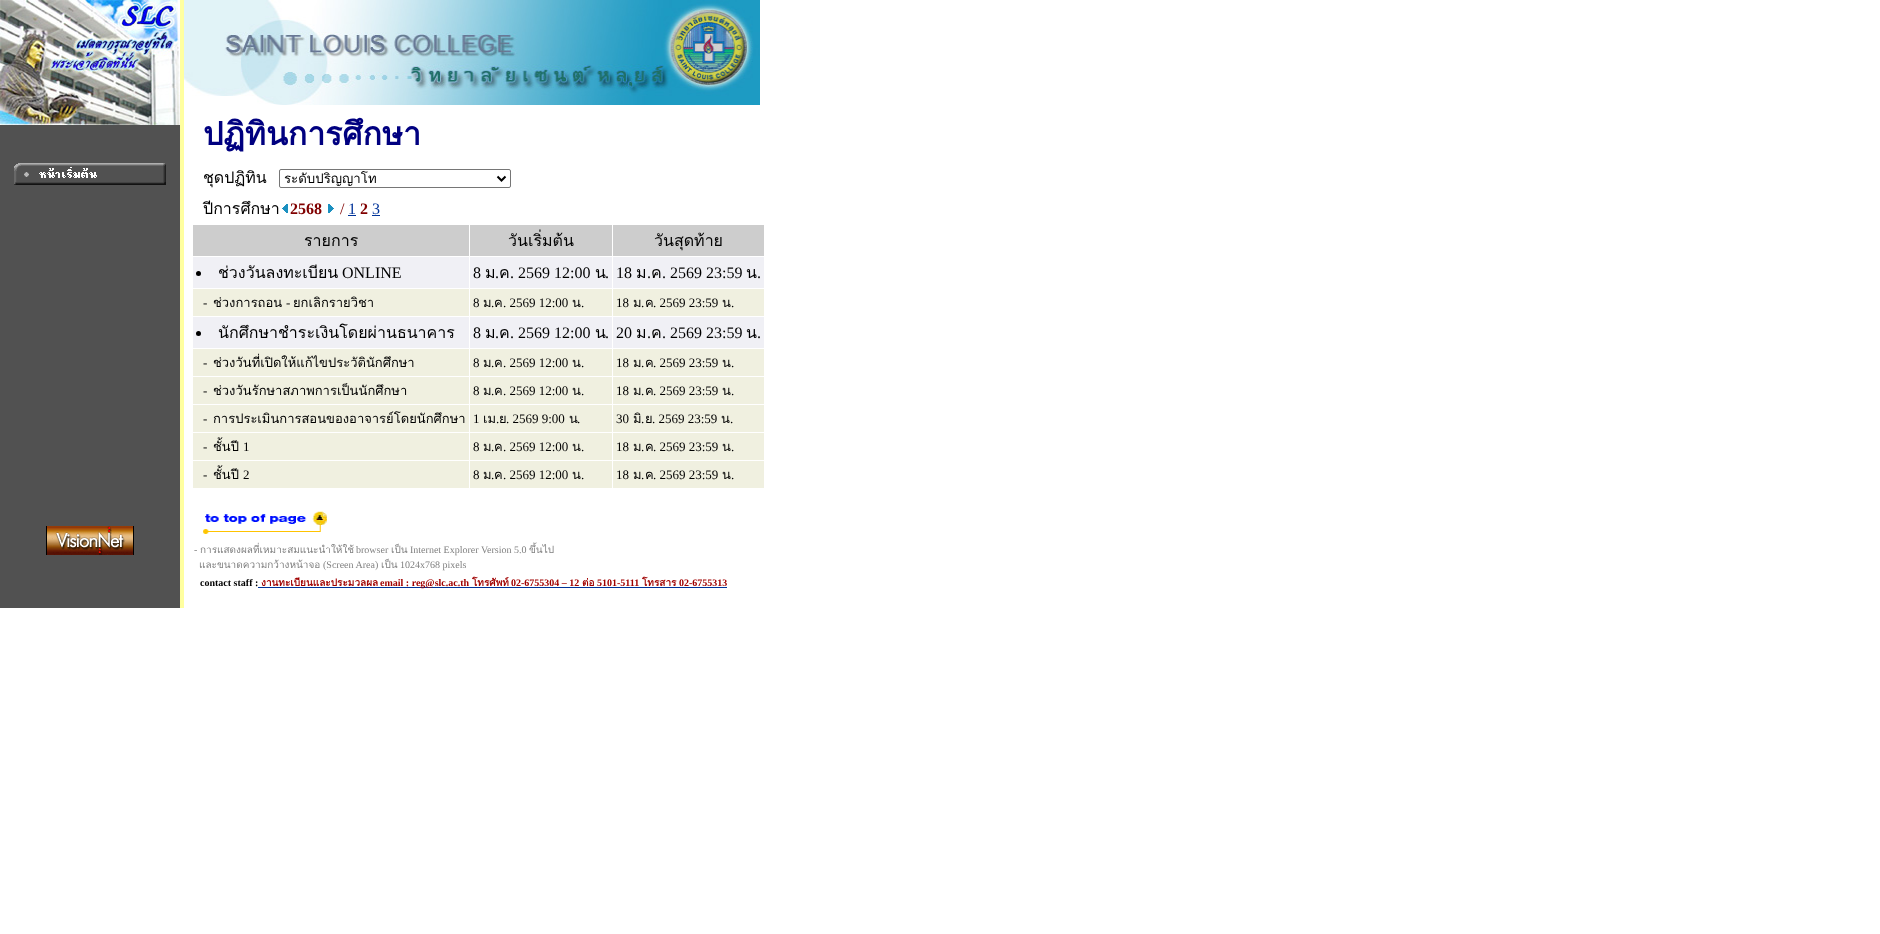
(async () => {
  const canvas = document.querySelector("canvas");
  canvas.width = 1880;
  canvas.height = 934;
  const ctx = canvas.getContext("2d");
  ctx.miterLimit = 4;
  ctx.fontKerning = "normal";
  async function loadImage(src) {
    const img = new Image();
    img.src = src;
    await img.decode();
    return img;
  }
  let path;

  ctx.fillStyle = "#ffffff";
  ctx.fillRect(0, 0, 1880, 934);
  ctx.fillStyle = "#515151";
  ctx.fillRect(0, 125, 180, 483);
  ctx.drawImage(await loadImage("img/1.png"), 0, 0, 180, 125);
  ctx.drawImage(await loadImage("img/2.png"), 14, 163, 152, 22);
  ctx.fillStyle = "#ffffa0";
  ctx.fillRect(180, 0, 4, 608);
  ctx.drawImage(await loadImage("img/3.png"), 184, 0, 576, 105);
  ctx.beginPath();
  ctx.roundRect(279.5, 169.5, 231, 18, 1.5);
  ctx.strokeStyle = "#767676";
  ctx.stroke();
  path = new Path2D("M497.5 176.5L501.5 180.5L505.5 176.5");
  ctx.strokeStyle = "#000000";
  ctx.lineWidth = 2;
  ctx.stroke(path);
  ctx.drawImage(await loadImage("img/4.png"), 282, 204, 6, 9);
  ctx.drawImage(await loadImage("img/5.png"), 328, 204, 6, 9);
  for (const [x, y, w, h, color] of [
    [348, 215, 8, 1, "#003399"],
    [372, 215, 8, 1, "#003399"],
    [193, 225, 276, 31, "#cdcdcd"],
    [470, 225, 142, 31, "#cdcdcd"],
    [613, 225, 151, 31, "#cdcdcd"],
    [193, 257, 276, 31, "#f0f0f5"],
  ]) {
    ctx.fillStyle = color;
    ctx.fillRect(x, y, w, h);
  }
  ctx.fillStyle = "#000000";
  ctx.beginPath();
  ctx.arc(198.5, 273.5, 2.5, 0, Math.PI * 2);
  ctx.fill();
  for (const [x, y, w, h, color] of [
    [470, 257, 142, 31, "#f0f0f5"],
    [613, 257, 151, 31, "#f0f0f5"],
    [193, 289, 276, 27, "#f0f0e0"],
    [470, 289, 142, 27, "#f0f0e0"],
    [613, 289, 151, 27, "#f0f0e0"],
    [193, 317, 276, 31, "#f0f0f5"],
  ]) {
    ctx.fillStyle = color;
    ctx.fillRect(x, y, w, h);
  }
  ctx.fillStyle = "#000000";
  ctx.beginPath();
  ctx.arc(198.5, 333.5, 2.5, 0, Math.PI * 2);
  ctx.fill();
  for (const [x, y, w, h, color] of [
    [470, 317, 142, 31, "#f0f0f5"],
    [613, 317, 151, 31, "#f0f0f5"],
    [193, 349, 276, 27, "#f0f0e0"],
    [470, 349, 142, 27, "#f0f0e0"],
    [613, 349, 151, 27, "#f0f0e0"],
    [193, 377, 276, 27, "#f0f0e0"],
    [470, 377, 142, 27, "#f0f0e0"],
    [613, 377, 151, 27, "#f0f0e0"],
    [193, 405, 276, 27, "#f0f0e0"],
    [470, 405, 142, 27, "#f0f0e0"],
    [613, 405, 151, 27, "#f0f0e0"],
    [193, 433, 276, 27, "#f0f0e0"],
    [470, 433, 142, 27, "#f0f0e0"],
    [613, 433, 151, 27, "#f0f0e0"],
    [193, 461, 276, 27, "#f0f0e0"],
    [470, 461, 142, 27, "#f0f0e0"],
    [613, 461, 151, 27, "#f0f0e0"],
  ]) {
    ctx.fillStyle = color;
    ctx.fillRect(x, y, w, h);
  }
  ctx.drawImage(await loadImage("img/6.png"), 46, 526, 88, 29);
  ctx.drawImage(await loadImage("img/7.png"), 203, 511, 124, 23);
  ctx.fillStyle = "#003399";
  ctx.fillRect(258, 587, 469, 1);
  ctx.font = "bold 32px Loma";
  ctx.fillStyle = "#000080";
  ctx.fillText("ปฏิทินการศึกษา", 203, 145);
  ctx.font = "16px Loma";
  ctx.fillStyle = "#000000";
  ctx.fillText("ชุดปฏิทิน", 203, 183);
  ctx.font = "13.25px Loma";
  ctx.fillText("ระดับปริญญาโท", 284, 183);
  ctx.font = "16px Loma";
  ctx.fillText("ปีการศึกษา", 203, 214);
  ctx.font = "bold 16px Liberation Serif";
  ctx.fillStyle = "#800000";
  ctx.fillText("2568", 290, 214);
  ctx.font = "16px Liberation Serif";
  ctx.fillText("/", 340, 214);
  ctx.fillStyle = "#003399";
  ctx.fillText("1", 348, 214);
  ctx.font = "bold 16px Liberation Serif";
  ctx.fillStyle = "#800000";
  ctx.fillText("2", 360, 214);
  ctx.font = "16px Liberation Serif";
  ctx.fillStyle = "#003399";
  ctx.fillText("3", 372, 214);
  ctx.font = "16px Loma";
  ctx.fillStyle = "#000000";
  for (const [text, x, y] of [
    ["รายการ", 304, 246],
    ["วันเริ่มต้น", 508, 246],
    ["วันสุดท้าย", 654, 246],
    ["ช่วงวันลงทะเบียน", 218, 278],
  ]) {
    ctx.fillText(text, x, y);
  }
  ctx.font = "16px Liberation Serif";
  ctx.fillText("ONLINE", 342, 278);
  ctx.fillText("8", 473, 278);
  ctx.font = "16px Loma";
  ctx.fillText("ม", 485, 278);
  ctx.font = "16px Liberation Serif";
  ctx.fillText(".", 495, 278);
  ctx.font = "16px Loma";
  ctx.fillText("ค", 499, 278);
  ctx.font = "16px Liberation Serif";
  ctx.fillText(". 2569 12:00", 510, 278);
  ctx.font = "16px Loma";
  ctx.fillText("น", 595, 278);
  ctx.font = "16px Liberation Serif";
  ctx.fillText(".", 605, 278);
  ctx.fillText("18", 616, 278);
  ctx.font = "16px Loma";
  ctx.fillText("ม", 636, 278);
  ctx.font = "16px Liberation Serif";
  ctx.fillText(".", 647, 278);
  ctx.font = "16px Loma";
  ctx.fillText("ค", 651, 278);
  ctx.font = "16px Liberation Serif";
  ctx.fillText(". 2569 23:59", 662, 278);
  ctx.font = "16px Loma";
  ctx.fillText("น", 746, 278);
  ctx.font = "16px Liberation Serif";
  ctx.fillText(".", 757, 278);
  ctx.font = "13px Liberation Serif";
  ctx.fillText("-", 203, 307);
  ctx.font = "13px Loma";
  ctx.fillText("ช่วงการถอน", 213, 307);
  ctx.font = "13px Liberation Serif";
  ctx.fillText("-", 286, 307);
  ctx.font = "13px Loma";
  ctx.fillText("ยกเลิกรายวิชา", 293, 307);
  ctx.font = "13px Liberation Serif";
  ctx.fillText("8", 473, 307);
  ctx.font = "13px Loma";
  ctx.fillText("ม", 483, 307);
  ctx.font = "13px Liberation Serif";
  ctx.fillText(".", 491, 307);
  ctx.font = "13px Loma";
  ctx.fillText("ค", 494, 307);
  ctx.font = "13px Liberation Serif";
  ctx.fillText(". 2569 12:00", 503, 307);
  ctx.font = "13px Loma";
  ctx.fillText("น", 572, 307);
  ctx.font = "13px Liberation Serif";
  ctx.fillText(".", 581, 307);
  ctx.fillText("18", 616, 307);
  ctx.font = "13px Loma";
  ctx.fillText("ม", 633, 307);
  ctx.font = "13px Liberation Serif";
  ctx.fillText(".", 641, 307);
  ctx.font = "13px Loma";
  ctx.fillText("ค", 645, 307);
  ctx.font = "13px Liberation Serif";
  ctx.fillText(". 2569 23:59", 653, 307);
  ctx.font = "13px Loma";
  ctx.fillText("น", 722, 307);
  ctx.font = "13px Liberation Serif";
  ctx.fillText(".", 731, 307);
  ctx.font = "16px Loma";
  ctx.fillText("นักศึกษาชำระเงินโดยผ่านธนาคาร", 218, 338);
  ctx.font = "16px Liberation Serif";
  ctx.fillText("8", 473, 338);
  ctx.font = "16px Loma";
  ctx.fillText("ม", 485, 338);
  ctx.font = "16px Liberation Serif";
  ctx.fillText(".", 495, 338);
  ctx.font = "16px Loma";
  ctx.fillText("ค", 499, 338);
  ctx.font = "16px Liberation Serif";
  ctx.fillText(". 2569 12:00", 510, 338);
  ctx.font = "16px Loma";
  ctx.fillText("น", 595, 338);
  ctx.font = "16px Liberation Serif";
  ctx.fillText(".", 605, 338);
  ctx.fillText("20", 616, 338);
  ctx.font = "16px Loma";
  ctx.fillText("ม", 636, 338);
  ctx.font = "16px Liberation Serif";
  ctx.fillText(".", 647, 338);
  ctx.font = "16px Loma";
  ctx.fillText("ค", 651, 338);
  ctx.font = "16px Liberation Serif";
  ctx.fillText(". 2569 23:59", 662, 338);
  ctx.font = "16px Loma";
  ctx.fillText("น", 746, 338);
  ctx.font = "16px Liberation Serif";
  ctx.fillText(".", 757, 338);
  ctx.font = "13px Liberation Serif";
  ctx.fillText("-", 203, 367);
  ctx.font = "13px Loma";
  ctx.fillText("ช่วงวันที่เปิดให้แก้ไขประวัตินักศึกษา", 213, 367);
  ctx.font = "13px Liberation Serif";
  ctx.fillText("8", 473, 367);
  ctx.font = "13px Loma";
  ctx.fillText("ม", 483, 367);
  ctx.font = "13px Liberation Serif";
  ctx.fillText(".", 491, 367);
  ctx.font = "13px Loma";
  ctx.fillText("ค", 494, 367);
  ctx.font = "13px Liberation Serif";
  ctx.fillText(". 2569 12:00", 503, 367);
  ctx.font = "13px Loma";
  ctx.fillText("น", 572, 367);
  ctx.font = "13px Liberation Serif";
  ctx.fillText(".", 581, 367);
  ctx.fillText("18", 616, 367);
  ctx.font = "13px Loma";
  ctx.fillText("ม", 633, 367);
  ctx.font = "13px Liberation Serif";
  ctx.fillText(".", 641, 367);
  ctx.font = "13px Loma";
  ctx.fillText("ค", 645, 367);
  ctx.font = "13px Liberation Serif";
  ctx.fillText(". 2569 23:59", 653, 367);
  ctx.font = "13px Loma";
  ctx.fillText("น", 722, 367);
  ctx.font = "13px Liberation Serif";
  ctx.fillText(".", 731, 367);
  ctx.fillText("-", 203, 395);
  ctx.font = "13px Loma";
  ctx.fillText("ช่วงวันรักษาสภาพการเป็นนักศึกษา", 213, 395);
  ctx.font = "13px Liberation Serif";
  ctx.fillText("8", 473, 395);
  ctx.font = "13px Loma";
  ctx.fillText("ม", 483, 395);
  ctx.font = "13px Liberation Serif";
  ctx.fillText(".", 491, 395);
  ctx.font = "13px Loma";
  ctx.fillText("ค", 494, 395);
  ctx.font = "13px Liberation Serif";
  ctx.fillText(". 2569 12:00", 503, 395);
  ctx.font = "13px Loma";
  ctx.fillText("น", 572, 395);
  ctx.font = "13px Liberation Serif";
  ctx.fillText(".", 581, 395);
  ctx.fillText("18", 616, 395);
  ctx.font = "13px Loma";
  ctx.fillText("ม", 633, 395);
  ctx.font = "13px Liberation Serif";
  ctx.fillText(".", 641, 395);
  ctx.font = "13px Loma";
  ctx.fillText("ค", 645, 395);
  ctx.font = "13px Liberation Serif";
  ctx.fillText(". 2569 23:59", 653, 395);
  ctx.font = "13px Loma";
  ctx.fillText("น", 722, 395);
  ctx.font = "13px Liberation Serif";
  ctx.fillText(".", 731, 395);
  ctx.fillText("-", 203, 423);
  ctx.font = "13px Loma";
  ctx.fillText("การประเมินการสอนของอาจารย์โดยนักศึกษา", 213, 423);
  ctx.font = "13px Liberation Serif";
  ctx.fillText("1", 473, 423);
  ctx.font = "13px Loma";
  ctx.fillText("เม", 483, 423);
  ctx.font = "13px Liberation Serif";
  ctx.fillText(".", 496, 423);
  ctx.font = "13px Loma";
  ctx.fillText("ย", 499, 423);
  ctx.font = "13px Liberation Serif";
  ctx.fillText(". 2569 9:00", 506, 423);
  ctx.font = "13px Loma";
  ctx.fillText("น", 569, 423);
  ctx.font = "13px Liberation Serif";
  ctx.fillText(".", 577, 423);
  ctx.fillText("30", 616, 423);
  ctx.font = "13px Loma";
  ctx.fillText("มิ", 633, 423);
  ctx.font = "13px Liberation Serif";
  ctx.fillText(".", 641, 423);
  ctx.font = "13px Loma";
  ctx.fillText("ย", 645, 423);
  ctx.font = "13px Liberation Serif";
  ctx.fillText(". 2569 23:59", 652, 423);
  ctx.font = "13px Loma";
  ctx.fillText("น", 721, 423);
  ctx.font = "13px Liberation Serif";
  ctx.fillText(".", 730, 423);
  ctx.fillText("-", 203, 451);
  ctx.font = "13px Loma";
  ctx.fillText("ชั้นปี", 213, 451);
  ctx.font = "13px Liberation Serif";
  ctx.fillText("1", 243, 451);
  ctx.fillText("8", 473, 451);
  ctx.font = "13px Loma";
  ctx.fillText("ม", 483, 451);
  ctx.font = "13px Liberation Serif";
  ctx.fillText(".", 491, 451);
  ctx.font = "13px Loma";
  ctx.fillText("ค", 494, 451);
  ctx.font = "13px Liberation Serif";
  ctx.fillText(". 2569 12:00", 503, 451);
  ctx.font = "13px Loma";
  ctx.fillText("น", 572, 451);
  ctx.font = "13px Liberation Serif";
  ctx.fillText(".", 581, 451);
  ctx.fillText("18", 616, 451);
  ctx.font = "13px Loma";
  ctx.fillText("ม", 633, 451);
  ctx.font = "13px Liberation Serif";
  ctx.fillText(".", 641, 451);
  ctx.font = "13px Loma";
  ctx.fillText("ค", 645, 451);
  ctx.font = "13px Liberation Serif";
  ctx.fillText(". 2569 23:59", 653, 451);
  ctx.font = "13px Loma";
  ctx.fillText("น", 722, 451);
  ctx.font = "13px Liberation Serif";
  ctx.fillText(".", 731, 451);
  ctx.fillText("-", 203, 479);
  ctx.font = "13px Loma";
  ctx.fillText("ชั้นปี", 213, 479);
  ctx.font = "13px Liberation Serif";
  ctx.fillText("2", 243, 479);
  ctx.fillText("8", 473, 479);
  ctx.font = "13px Loma";
  ctx.fillText("ม", 483, 479);
  ctx.font = "13px Liberation Serif";
  ctx.fillText(".", 491, 479);
  ctx.font = "13px Loma";
  ctx.fillText("ค", 494, 479);
  ctx.font = "13px Liberation Serif";
  ctx.fillText(". 2569 12:00", 503, 479);
  ctx.font = "13px Loma";
  ctx.fillText("น", 572, 479);
  ctx.font = "13px Liberation Serif";
  ctx.fillText(".", 581, 479);
  ctx.fillText("18", 616, 479);
  ctx.font = "13px Loma";
  ctx.fillText("ม", 633, 479);
  ctx.font = "13px Liberation Serif";
  ctx.fillText(".", 641, 479);
  ctx.font = "13px Loma";
  ctx.fillText("ค", 645, 479);
  ctx.font = "13px Liberation Serif";
  ctx.fillText(". 2569 23:59", 653, 479);
  ctx.font = "13px Loma";
  ctx.fillText("น", 722, 479);
  ctx.font = "13px Liberation Serif";
  ctx.fillText(".", 731, 479);
  ctx.font = "10px Liberation Serif";
  ctx.fillStyle = "#808080";
  ctx.fillText("-", 194, 553);
  ctx.font = "10px Loma";
  ctx.fillText("การแสดงผลที่เหมาะสมแนะนำให้ใช้", 200, 553);
  ctx.font = "10px Liberation Serif";
  ctx.fillText("browser", 356, 553);
  ctx.font = "10px Loma";
  ctx.fillText("เป็น", 391, 553);
  ctx.font = "10px Liberation Serif";
  ctx.fillText("Internet Explorer Version 5.0", 410, 553);
  ctx.font = "10px Loma";
  ctx.fillText("ขึ้นไป", 529, 553);
  ctx.fillText("และขนาดความกว้างหน้าจอ", 199, 568);
  ctx.font = "10px Liberation Serif";
  ctx.fillText("(Screen Area)", 323, 568);
  ctx.font = "10px Loma";
  ctx.fillText("เป็น", 381, 568);
  ctx.font = "10px Liberation Serif";
  ctx.fillText("1024x768 pixels", 400, 568);
  ctx.font = "bold 10px Liberation Serif";
  ctx.fillStyle = "#000000";
  ctx.fillText("contact staff :", 200, 586);
  ctx.font = "bold 10px Loma";
  ctx.fillStyle = "#a00000";
  ctx.fillText("งานทะเบียนและประมวลผล", 261, 586);
  ctx.font = "bold 10px Liberation Serif";
  ctx.fillText("email : reg@slc.ac.th", 380, 586);
  ctx.font = "bold 10px Loma";
  ctx.fillText("โทรศัพท์", 472, 586);
  ctx.font = "bold 10px Liberation Serif";
  ctx.fillText("02-6755304 – 12", 511, 586);
  ctx.font = "bold 10px Loma";
  ctx.fillText("ต่อ", 582, 586);
  ctx.font = "bold 10px Liberation Serif";
  ctx.fillText("5101-5111", 597, 586);
  ctx.font = "bold 10px Loma";
  ctx.fillText("โทรสาร", 642, 586);
  ctx.font = "bold 10px Liberation Serif";
  ctx.fillText("02-6755313", 679, 586);
})();
